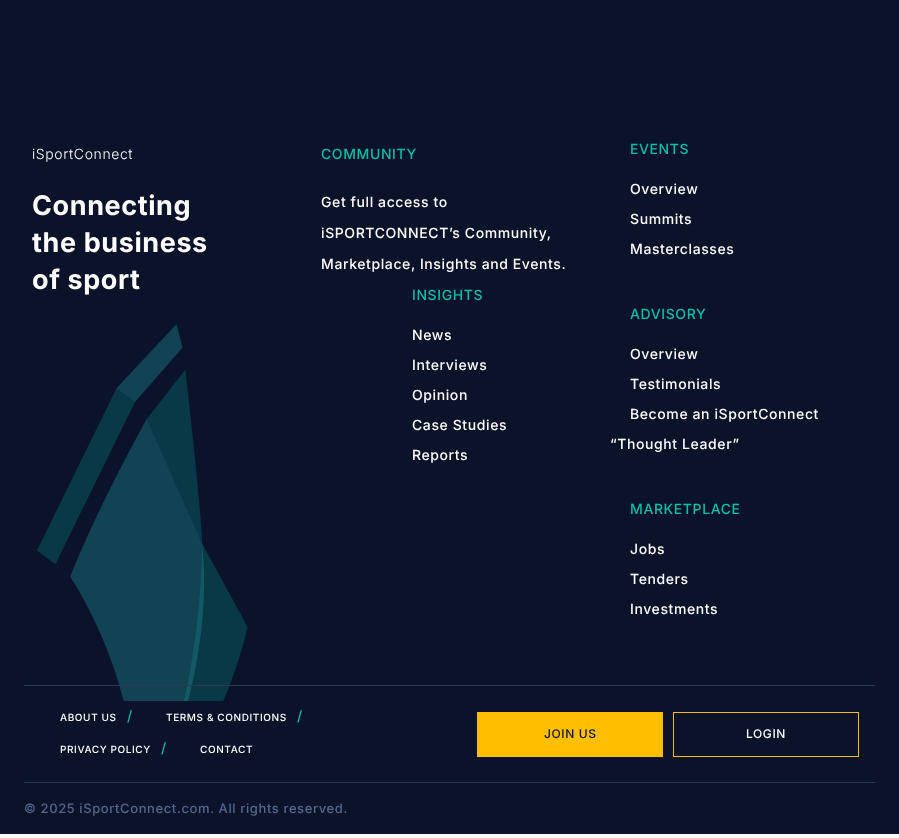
(async () => {
  const canvas = document.querySelector("canvas");
  canvas.width = 899;
  canvas.height = 838;
  const ctx = canvas.getContext("2d");
  ctx.miterLimit = 4;
  ctx.fontKerning = "normal";
  async function loadImage(src) {
    const img = new Image();
    img.src = src;
    await img.decode();
    return img;
  }

  ctx.fillStyle = "#ffffff";
  ctx.fillRect(0, 0, 899, 838);
  ctx.fillStyle = "#0b132b";
  ctx.fillRect(0, 0, 899, 834);
  ctx.drawImage(await loadImage("img/1.png"), 37, 324, 211, 377);
  for (const [x, y, w, h, color] of [
    [24, 685, 851, 1, "#2e3a53"],
    [24, 782, 851, 1, "#2e3a53"],
    [477, 712, 186, 45, "#ffbf00"],
  ]) {
    ctx.fillStyle = color;
    ctx.fillRect(x, y, w, h);
  }
  ctx.strokeStyle = "#ffbf00";
  ctx.strokeRect(673.5, 712.5, 185, 44);
  ctx.letterSpacing = "0.6px";
  ctx.font = "300 14px Inter";
  ctx.fillStyle = "#ffffff";
  ctx.fillText("iSportConnect", 32, 159);
  ctx.font = "bold 27px Inter";
  for (const [text, x, y] of [
    ["Connecting", 32, 215],
    ["the business", 32, 252],
    ["of sport", 32, 289],
  ]) {
    ctx.fillText(text, x, y);
  }
  ctx.font = "500 14px Inter";
  ctx.fillStyle = "#09bfa1";
  ctx.fillText("COMMUNITY", 321, 159);
  ctx.fillStyle = "#ffffff";
  for (const [text, x, y] of [
    ["Get full access to", 321, 207],
    ["iSPORTCONNECT’s Community,", 321, 238],
    ["Marketplace, Insights and Events.", 321, 269],
  ]) {
    ctx.fillText(text, x, y);
  }
  ctx.fillStyle = "#09bfa1";
  ctx.fillText("INSIGHTS", 412, 300);
  ctx.fillStyle = "#ffffff";
  for (const [text, x, y] of [
    ["News", 412, 340],
    ["Interviews", 412, 370],
    ["Opinion", 412, 400],
    ["Case Studies", 412, 430],
    ["Reports", 412, 460],
  ]) {
    ctx.fillText(text, x, y);
  }
  ctx.fillStyle = "#09bfa1";
  ctx.fillText("EVENTS", 630, 154);
  ctx.fillStyle = "#ffffff";
  for (const [text, x, y] of [
    ["Overview", 630, 194],
    ["Summits", 630, 224],
    ["Masterclasses", 630, 254],
  ]) {
    ctx.fillText(text, x, y);
  }
  ctx.fillStyle = "#09bfa1";
  ctx.fillText("ADVISORY", 630, 319);
  ctx.fillStyle = "#ffffff";
  for (const [text, x, y] of [
    ["Overview", 630, 359],
    ["Testimonials", 630, 389],
    ["Become an iSportConnect", 630, 419],
    ["“Thought Leader”", 610, 449],
  ]) {
    ctx.fillText(text, x, y);
  }
  ctx.fillStyle = "#09bfa1";
  ctx.fillText("MARKETPLACE", 630, 514);
  ctx.fillStyle = "#ffffff";
  for (const [text, x, y] of [
    ["Jobs", 630, 554],
    ["Tenders", 630, 584],
    ["Investments", 630, 614],
  ]) {
    ctx.fillText(text, x, y);
  }
  ctx.font = "500 10px Inter";
  ctx.fillText("ABOUT US", 60, 721);
  ctx.font = "500 14px Inter";
  ctx.fillStyle = "#09bfa1";
  ctx.fillText("/", 127, 721);
  ctx.font = "500 10px Inter";
  ctx.fillStyle = "#ffffff";
  ctx.fillText("TERMS & CONDITIONS", 166, 721);
  ctx.font = "500 14px Inter";
  ctx.fillStyle = "#09bfa1";
  ctx.fillText("/", 297, 721);
  ctx.font = "500 10px Inter";
  ctx.fillStyle = "#ffffff";
  ctx.fillText("PRIVACY POLICY", 60, 753);
  ctx.font = "500 14px Inter";
  ctx.fillStyle = "#09bfa1";
  ctx.fillText("/", 161, 753);
  ctx.font = "500 10px Inter";
  ctx.fillStyle = "#ffffff";
  ctx.fillText("CONTACT", 200, 753);
  ctx.font = "500 12px Inter";
  ctx.fillStyle = "#0b132b";
  ctx.fillText("JOIN US", 544, 738);
  ctx.fillStyle = "#ffffff";
  ctx.fillText("LOGIN", 746, 738);
  ctx.font = "500 13px Inter";
  ctx.fillStyle = "#56678b";
  ctx.fillText("© 2025 iSportConnect.com. All rights reserved.", 24, 813);
})();
